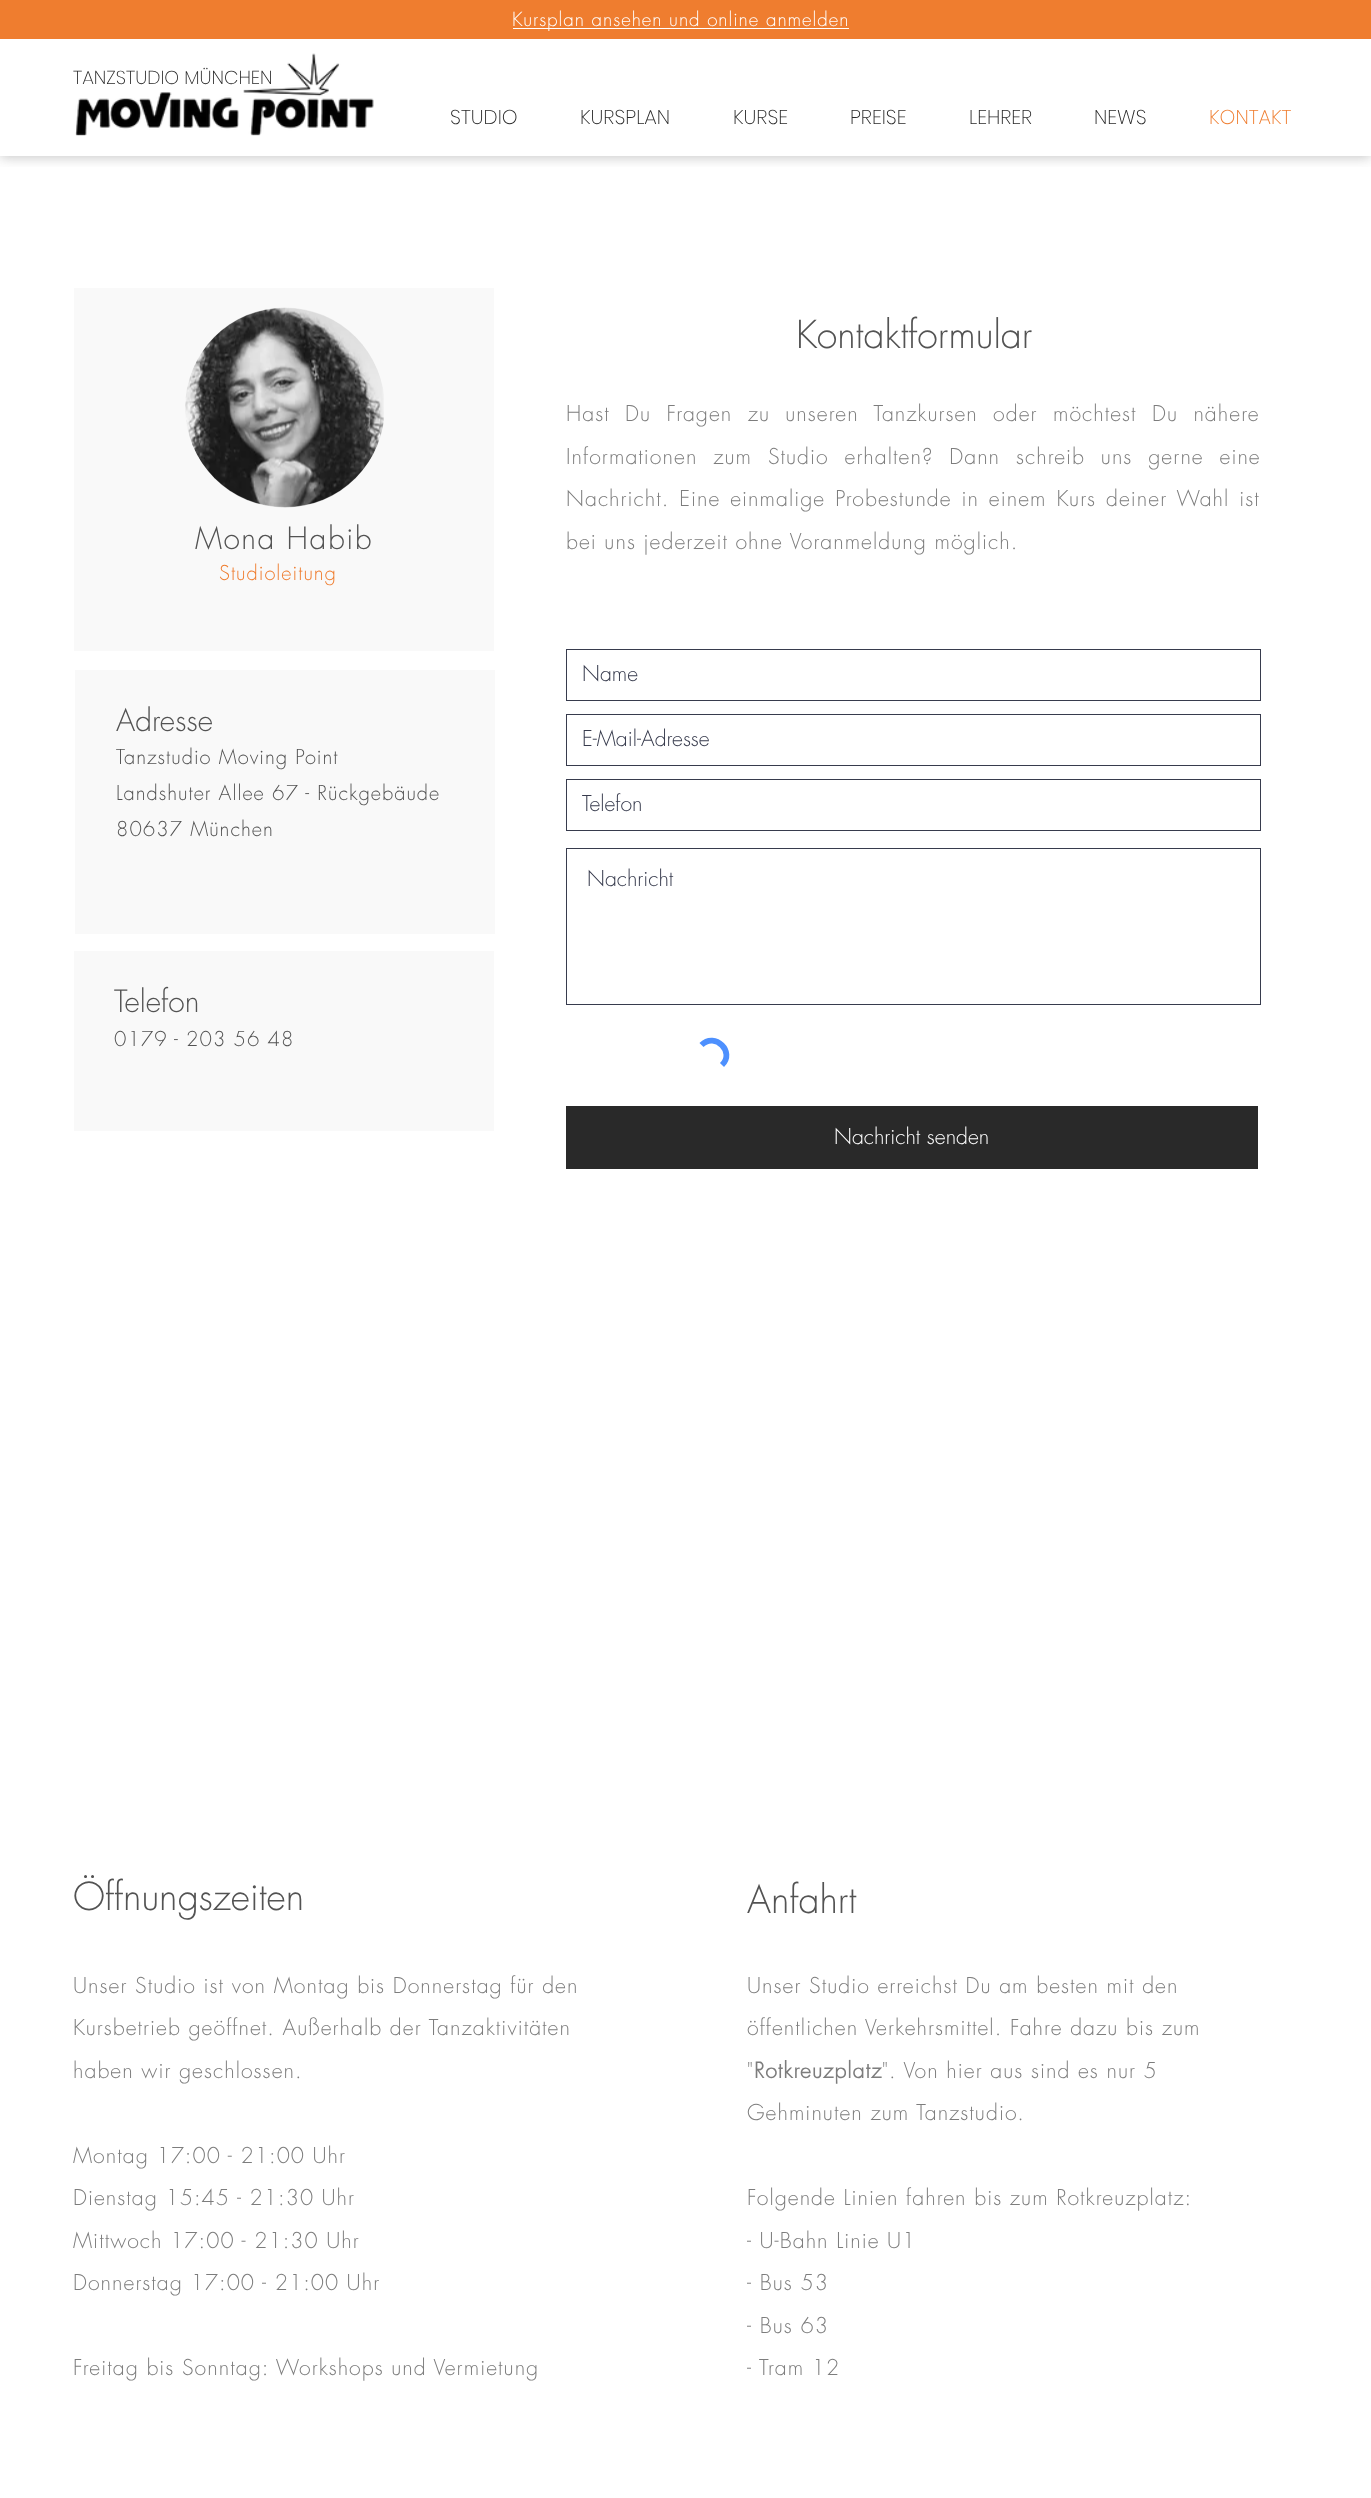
(async () => {
  const canvas = document.querySelector("canvas");
  canvas.width = 1371;
  canvas.height = 2498;
  const ctx = canvas.getContext("2d");
  ctx.miterLimit = 4;
  ctx.fontKerning = "normal";
  async function loadImage(src) {
    const img = new Image();
    img.src = src;
    await img.decode();
    return img;
  }
  let path;

  ctx.fillStyle = "#ffffff";
  ctx.fillRect(0, 0, 1371, 2498);
  ctx.save();
  ctx.beginPath();
  ctx.rect(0, 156, 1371, 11);
  ctx.clip();
  ctx.fillStyle = "rgba(83, 83, 83, 0.3)";
  ctx.filter = "blur(6px)";
  ctx.beginPath();
  ctx.rect(0, 1, 1371, 157);
  ctx.fill();
  ctx.filter = "none";
  ctx.restore();
  ctx.fillStyle = "#ef7d2f";
  ctx.fillRect(0, 0, 1371, 39);
  ctx.fillStyle = "#ffffff";
  ctx.fillRect(513, 28, 336, 1);
  ctx.drawImage(await loadImage("img/1.png"), 75, 53, 299, 83);
  ctx.fillStyle = "#f9f9f9";
  ctx.fillRect(74, 288, 420, 363);
  ctx.drawImage(await loadImage("img/2.png"), 185, 307, 199, 201);
  ctx.fillRect(75, 670, 420, 264);
  ctx.strokeStyle = "#373b4d";
  ctx.strokeRect(566.5, 649.5, 694, 51);
  ctx.strokeRect(566.5, 714.5, 694, 51);
  ctx.strokeRect(566.5, 779.5, 694, 51);
  ctx.strokeRect(566.5, 848.5, 694, 156);
  path = new Path2D("M701.5 1045C715 1031.5 735.5 1052 722 1065");
  ctx.strokeStyle = "#4d90fe";
  ctx.lineWidth = 5.8;
  ctx.stroke(path);
  ctx.fillStyle = "#292929";
  ctx.fillRect(566, 1106, 692, 63);
  ctx.fillStyle = "#f9f9f9";
  ctx.fillRect(74, 951, 420, 180);
  ctx.letterSpacing = "0.95px";
  ctx.font = "300 18.75px futura";
  ctx.fillStyle = "#ffffff";
  ctx.fillText("Kursplan ansehen und online anmelden", 512, 26);
  ctx.letterSpacing = "0px";
  ctx.font = "200 18.75px Poppins";
  ctx.fillStyle = "#292929";
  ctx.fillText("TANZSTUDIO MÜNCHEN", 73, 84);
  ctx.font = "200 20px Poppins";
  for (const [text, x, y] of [
    ["STUDIO", 450, 124],
    ["KURSPLAN", 580, 124],
    ["KURSE", 733, 124],
    ["PREISE", 850, 124],
    ["LEHRER", 969, 124],
    ["NEWS", 1094, 124],
  ]) {
    ctx.fillText(text, x, y);
  }
  ctx.fillStyle = "#ef7d2f";
  ctx.fillText("KONTAKT", 1209, 124);
  ctx.font = "300 37.5px futura";
  ctx.fillStyle = "#535353";
  ctx.fillText("Kontaktformular", 796, 348);
  ctx.letterSpacing = "1.5px";
  ctx.font = "300 30px futura";
  ctx.fillText("Mona Habib", 195, 549);
  ctx.letterSpacing = "1px";
  ctx.font = "300 20px futura";
  ctx.fillStyle = "#ef7d2f";
  ctx.fillText("Studioleitung", 219, 580);
  ctx.letterSpacing = "1.05px";
  ctx.wordSpacing = "7.75px";
  ctx.font = "300 21.25px futura";
  ctx.fillStyle = "#7d7d7d";
  ctx.fillText("Hast Du Fragen zu unseren Tanzkursen oder möchtest Du nähere", 566, 421);
  ctx.wordSpacing = "8.25px";
  ctx.fillText("Informationen zum Studio erhalten? Dann schreib uns gerne eine", 566, 464);
  ctx.wordSpacing = "2.25px";
  ctx.fillText("Nachricht. Eine einmalige Probestunde in einem Kurs deiner Wahl ist", 566, 506);
  ctx.wordSpacing = "0px";
  ctx.fillText("bei uns jederzeit ohne Voranmeldung möglich.", 566, 549);
  ctx.letterSpacing = "0px";
  ctx.font = "300 30px futura";
  ctx.fillStyle = "#535353";
  ctx.fillText("Adresse", 116, 731);
  ctx.letterSpacing = "1px";
  ctx.font = "300 20px futura";
  for (const [text, x, y] of [
    ["Tanzstudio Moving Point", 116, 764],
    ["Landshuter Allee 67 - Rückgebäude", 116, 800],
    ["80637 München", 116, 836],
  ]) {
    ctx.fillText(text, x, y);
  }
  ctx.letterSpacing = "0px";
  ctx.font = "300 21.25px futura";
  ctx.fillStyle = "#373b4d";
  for (const [text, x, y] of [
    ["Name", 582, 681],
    ["E-Mail-Adresse", 582, 746],
    ["Telefon", 582, 811],
    ["Nachricht", 587, 886],
  ]) {
    ctx.fillText(text, x, y);
  }
  ctx.fillStyle = "#ffffff";
  ctx.fillText("Nachricht senden", 834, 1144);
  ctx.font = "300 30px futura";
  ctx.fillStyle = "#535353";
  ctx.fillText("Telefon", 114, 1012);
  ctx.letterSpacing = "1px";
  ctx.font = "300 20px futura";
  ctx.fillText("0179 - 203 56 48", 114, 1046);
  ctx.letterSpacing = "0px";
  ctx.font = "300 37.5px futura";
  ctx.fillText("Öffnungszeiten", 73, 1910);
  ctx.letterSpacing = "1.05px";
  ctx.font = "300 21.25px futura";
  ctx.fillStyle = "#7d7d7d";
  for (const [text, x, y] of [
    ["Unser Studio ist von Montag bis Donnerstag für den", 73, 1993],
    ["Kursbetrieb geöffnet. Außerhalb der Tanzaktivitäten", 73, 2035],
    ["haben wir geschlossen.", 73, 2078],
    ["Montag 17:00 - 21:00 Uhr", 73, 2163],
    ["Dienstag 15:45 - 21:30 Uhr", 73, 2205],
    ["Mittwoch 17:00 - 21:30 Uhr", 73, 2248],
    ["Donnerstag 17:00 - 21:00 Uhr", 73, 2290],
    ["Freitag bis Sonntag: Workshops und Vermietung", 73, 2375],
  ]) {
    ctx.fillText(text, x, y);
  }
  ctx.letterSpacing = "0px";
  ctx.font = "300 37.5px futura";
  ctx.fillStyle = "#535353";
  ctx.fillText("Anfahrt", 747, 1913);
  ctx.letterSpacing = "1.05px";
  ctx.font = "300 21.25px futura";
  ctx.fillStyle = "#7d7d7d";
  for (const [text, x, y] of [
    ["Unser Studio erreichst Du am besten mit den", 747, 1993],
    ["öffentlichen Verkehrsmittel. Fahre dazu bis zum", 747, 2035],
    ["\"", 747, 2078],
  ]) {
    ctx.fillText(text, x, y);
  }
  ctx.font = "bold 21.25px futura";
  ctx.fillText("Rotkreuzplatz", 754, 2078);
  ctx.font = "300 21.25px futura";
  for (const [text, x, y] of [
    ["\". Von hier aus sind es nur 5", 882, 2078],
    ["Gehminuten zum Tanzstudio.", 747, 2120],
    ["Folgende Linien fahren bis zum Rotkreuzplatz:", 747, 2205],
    ["- U-Bahn Linie U1", 747, 2248],
    ["- Bus 53", 747, 2290],
    ["- Bus 63", 747, 2333],
    ["- Tram 12", 747, 2375],
  ]) {
    ctx.fillText(text, x, y);
  }
})();
